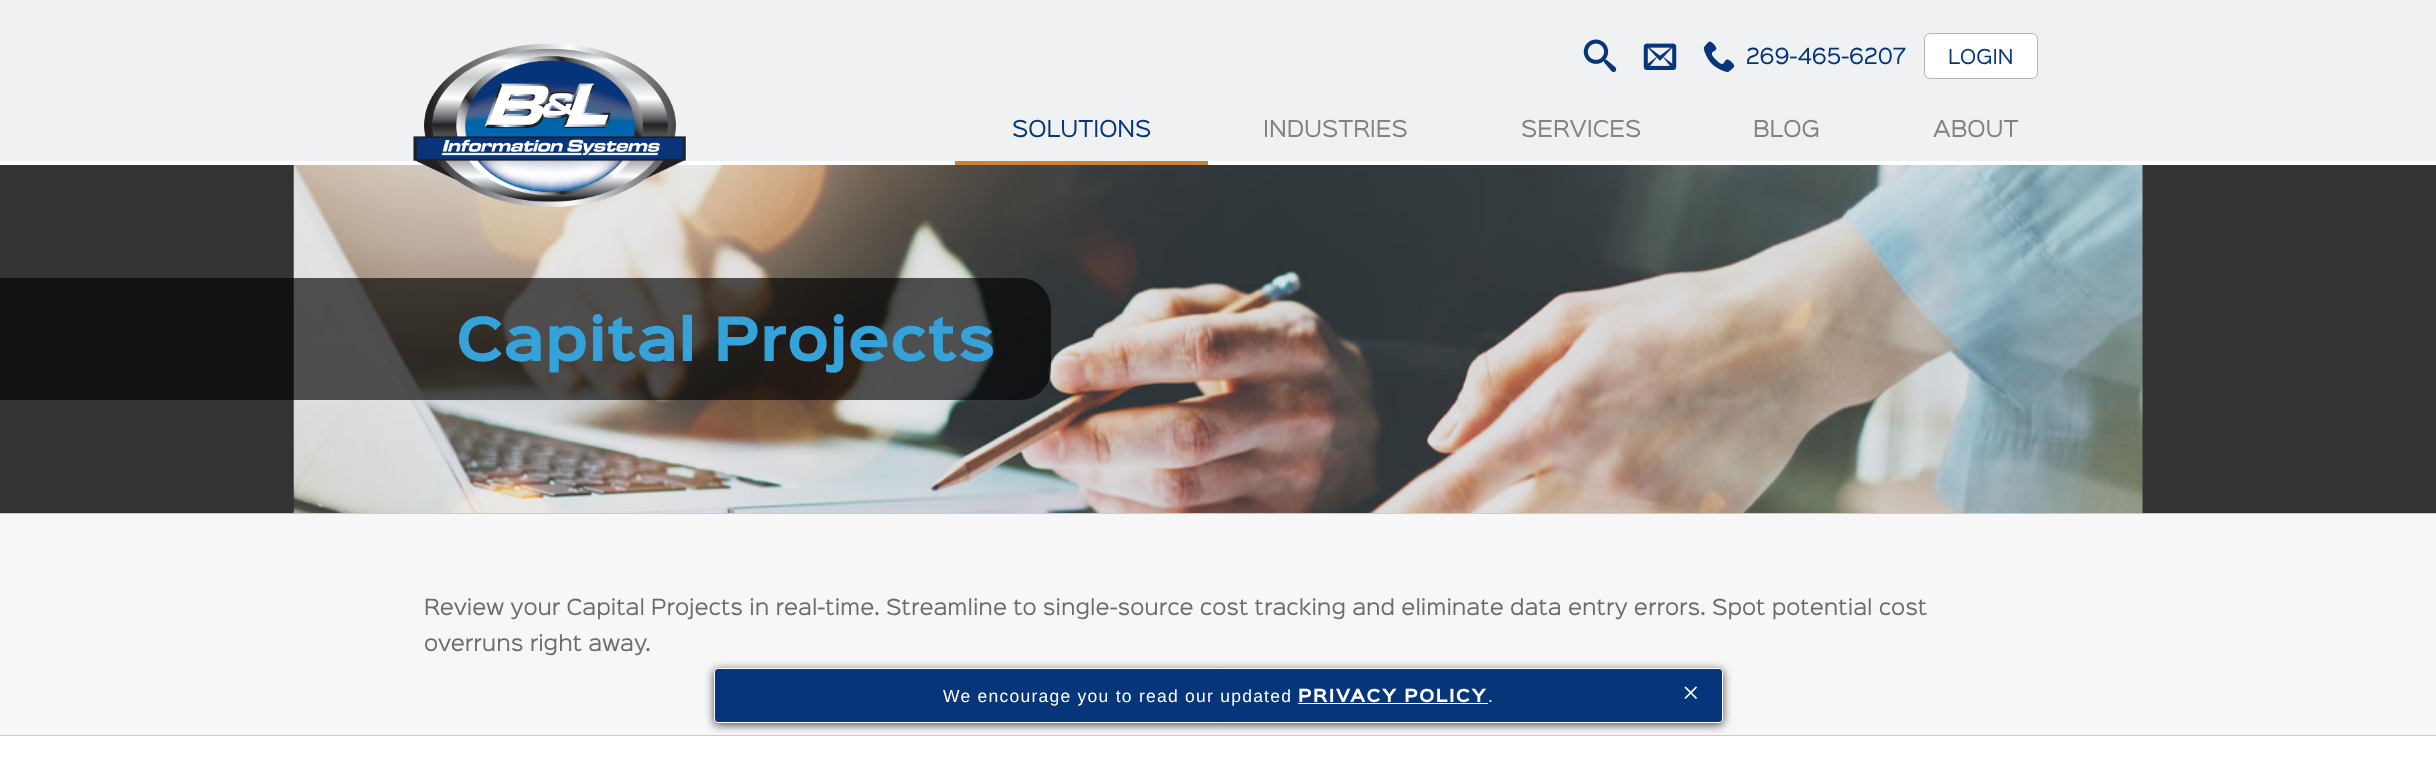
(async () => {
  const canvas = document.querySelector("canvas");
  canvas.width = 2436;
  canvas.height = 760;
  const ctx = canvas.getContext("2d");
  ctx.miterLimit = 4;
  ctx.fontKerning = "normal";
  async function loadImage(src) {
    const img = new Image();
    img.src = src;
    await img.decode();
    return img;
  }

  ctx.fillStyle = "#ffffff";
  ctx.fillRect(0, 0, 2436, 760);
  ctx.fillStyle = "#f0f1f3";
  ctx.fillRect(0, 0, 2436, 161);
  ctx.fillStyle = "#333333";
  ctx.fillRect(0, 165, 2436, 348);
  ctx.drawImage(await loadImage("img/5.png"), 293, 165, 1850, 348);
  ctx.drawImage(await loadImage("img/1.png"), 413, 43, 273, 164);
  ctx.drawImage(await loadImage("img/2.png"), 1583, 39, 34, 33);
  ctx.drawImage(await loadImage("img/3.png"), 1643, 43, 34, 27);
  ctx.drawImage(await loadImage("img/4.png"), 1703, 41, 32, 31);
  ctx.fillStyle = "#ffffff";
  ctx.beginPath();
  ctx.roundRect(1924.5, 33.5, 113, 45, 5.5);
  ctx.fill();
  ctx.strokeStyle = "#b7b7b7";
  ctx.stroke();
  ctx.fillStyle = "#c88335";
  ctx.fillRect(955, 161, 253, 4);
  ctx.fillStyle = "#cccccc";
  ctx.fillRect(0, 513, 2436, 1);
  ctx.fillStyle = "rgba(0, 0, 0, 0.65)";
  ctx.beginPath();
  ctx.roundRect(400, 278, 651, 122, [0, 31, 31, 0]);
  ctx.fill();
  for (const [x, y, w, h, color] of [
    [0, 278, 400, 122, "rgba(0, 0, 0, 0.65)"],
    [0, 514, 2436, 221, "#f7f7f7"],
    [0, 735, 2436, 1, "#cccccc"],
  ]) {
    ctx.fillStyle = color;
    ctx.fillRect(x, y, w, h);
  }
  ctx.fillStyle = "rgba(0, 0, 0, 0.7)";
  ctx.filter = "blur(5px)";
  ctx.beginPath();
  ctx.roundRect(714, 670, 1009, 55, 4);
  ctx.fill();
  ctx.filter = "none";
  ctx.fillStyle = "#06357a";
  ctx.beginPath();
  ctx.roundRect(714.5, 668.5, 1008, 54, 3.5);
  ctx.fill();
  ctx.strokeStyle = "#ffffff";
  ctx.stroke();
  ctx.fillStyle = "#ffffff";
  ctx.fillRect(1298, 703, 190, 1);
  ctx.font = "20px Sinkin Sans";
  ctx.fillStyle = "#06357a";
  ctx.fillText("269-465-6207", 1746, 64);
  ctx.font = "18.5px Sinkin Sans";
  ctx.fillText("LOGIN", 1948, 64);
  ctx.font = "21px Sinkin Sans";
  ctx.fillText("SOLUTIONS", 1012, 137);
  ctx.fillStyle = "#808285";
  for (const [text, x, y] of [
    ["INDUSTRIES", 1263, 137],
    ["SERVICES", 1521, 137],
    ["BLOG", 1753, 137],
    ["ABOUT", 1933, 137],
  ]) {
    ctx.fillText(text, x, y);
  }
  ctx.font = "bold 55px Sinkin Sans";
  ctx.fillStyle = "#35a3d9";
  ctx.fillText("Capital Projects", 456, 361);
  ctx.font = "20px Sinkin Sans";
  ctx.fillStyle = "#6c6c6c";
  ctx.fillText("Review your Capital Projects in real-time. Streamline to single-source cost tracking and eliminate data entry errors. Spot potential cost", 424, 615);
  ctx.fillText("overruns right away.", 424, 651);
  ctx.letterSpacing = "1.25px";
  ctx.font = "17.5px Liberation Sans";
  ctx.fillStyle = "#ffffff";
  ctx.fillText("We encourage you to read our updated", 943, 702);
  ctx.font = "bold 16.25px Sinkin Sans";
  ctx.fillText("PRIVACY POLICY", 1298, 702);
  ctx.font = "17.5px Liberation Sans";
  ctx.fillText(".", 1488, 702);
  ctx.letterSpacing = "0px";
  ctx.font = "31px Liberation Serif";
  ctx.fillText("×", 1682, 703);
})();
